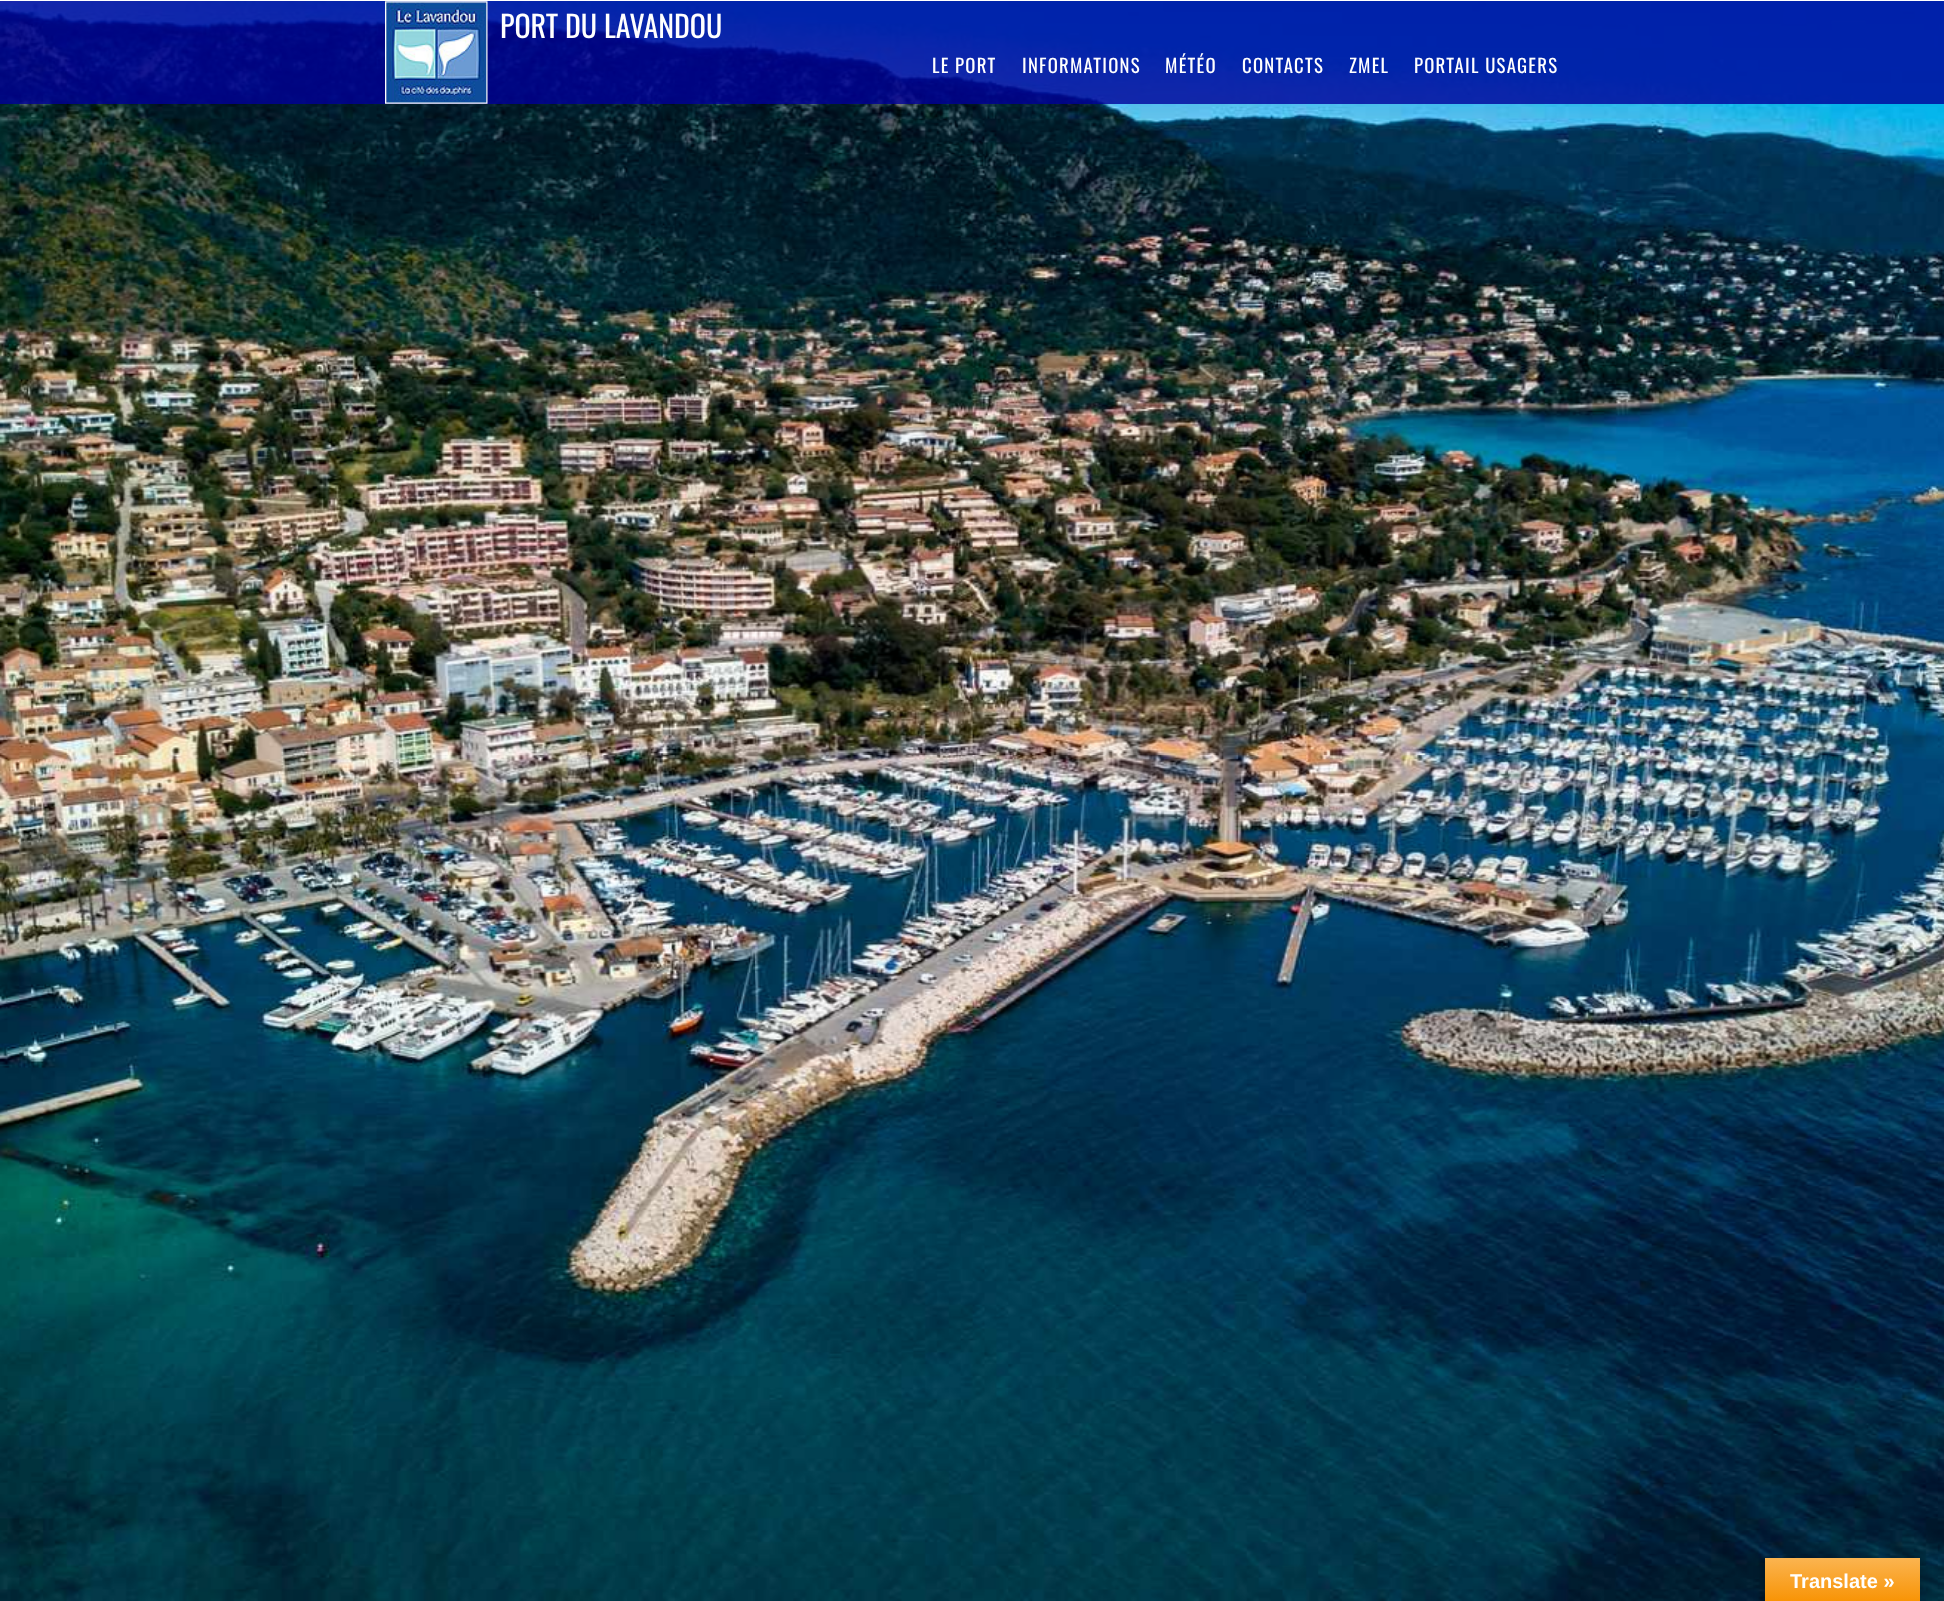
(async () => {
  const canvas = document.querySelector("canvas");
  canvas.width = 1944;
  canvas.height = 1601;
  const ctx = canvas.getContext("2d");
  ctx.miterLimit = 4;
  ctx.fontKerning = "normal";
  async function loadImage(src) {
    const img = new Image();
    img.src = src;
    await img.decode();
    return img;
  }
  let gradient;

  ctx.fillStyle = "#ffffff";
  ctx.fillRect(0, 0, 1944, 1601);
  ctx.drawImage(await loadImage("img/1.png"), 0, 1, 1944, 1600);
  ctx.fillStyle = "rgba(0, 0, 153, 0.8)";
  ctx.fillRect(0, 1, 1944, 103);
  ctx.drawImage(await loadImage("img/2.png"), 385, 1, 103, 103);
  ctx.fillStyle = "rgba(0, 0, 0, 0.3)";
  ctx.filter = "blur(5.5px)";
  ctx.beginPath();
  ctx.rect(1765, 1558, 155, 43);
  ctx.fill();
  ctx.filter = "none";
  gradient = ctx.createLinearGradient(1843, 1558, 1843, 1601);
  gradient.addColorStop(0, "#fbb450");
  gradient.addColorStop(1, "#f89406");
  ctx.fillStyle = gradient;
  ctx.fillRect(1765, 1558, 155, 43);
  ctx.font = "30px Oswald";
  ctx.fillStyle = "#ffffff";
  ctx.fillText("PORT DU LAVANDOU", 500, 38);
  ctx.letterSpacing = "1.25px";
  ctx.font = "18.75px Oswald";
  for (const [text, x, y] of [
    ["LE PORT", 932, 73],
    ["INFORMATIONS", 1022, 73],
    ["MÉTÉO", 1165, 73],
    ["CONTACTS", 1242, 73],
    ["ZMEL", 1349, 73],
    ["PORTAIL USAGERS", 1414, 73],
  ]) {
    ctx.fillText(text, x, y);
  }
  ctx.letterSpacing = "0px";
  ctx.font = "bold 20px Liberation Sans";
  ctx.fillText("Translate »", 1790, 1588);
})();
